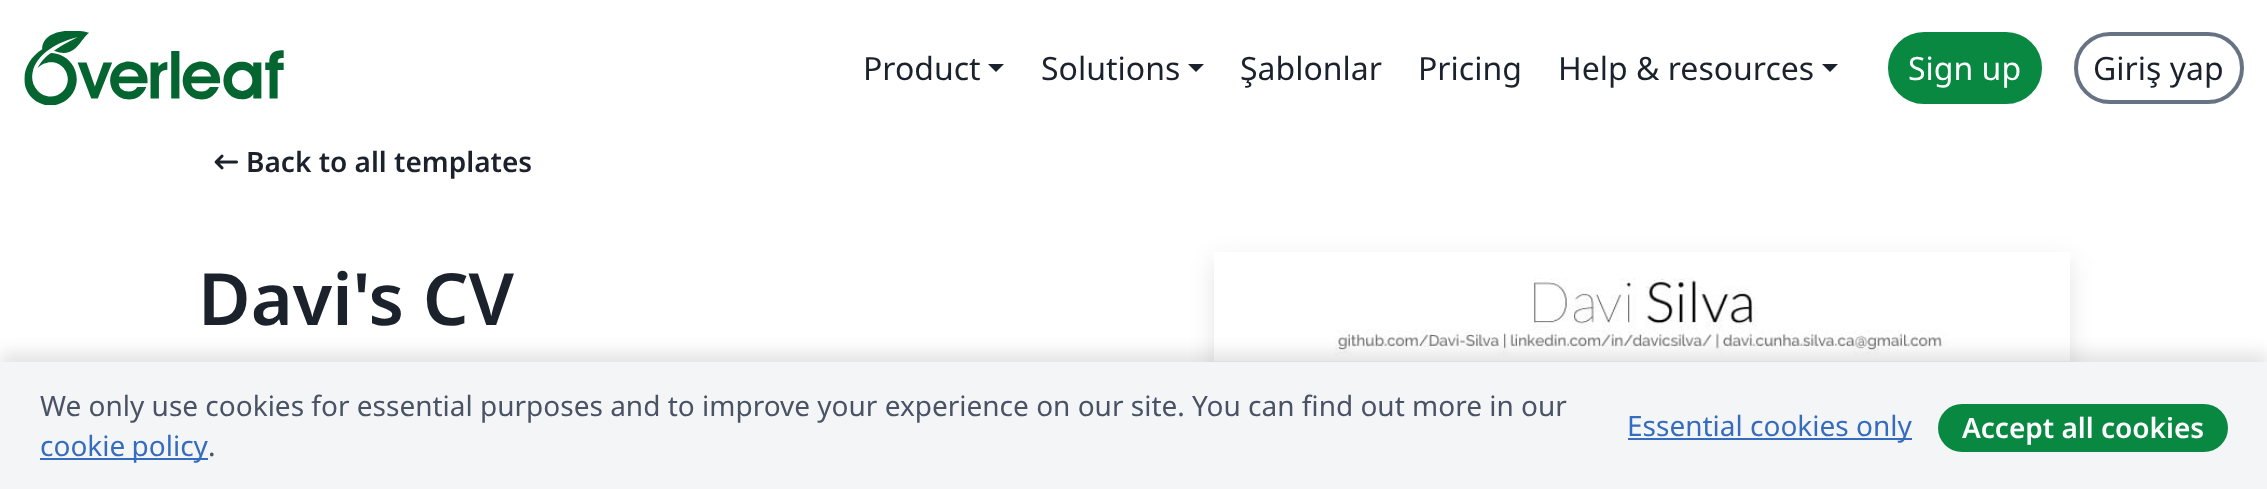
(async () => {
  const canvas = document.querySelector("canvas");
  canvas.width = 2267;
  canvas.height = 489;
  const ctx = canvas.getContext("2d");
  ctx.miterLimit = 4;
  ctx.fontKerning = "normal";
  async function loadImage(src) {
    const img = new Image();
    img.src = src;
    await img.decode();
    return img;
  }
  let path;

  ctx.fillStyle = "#ffffff";
  ctx.fillRect(0, 0, 2267, 489);
  ctx.drawImage(await loadImage("img/1.png"), 24, 31, 260, 75);
  ctx.fillStyle = "#1b222c";
  path = new Path2D("M988 64H1004L996 72Z");
  ctx.fill(path);
  path = new Path2D("M1188 64H1204L1196 72Z");
  ctx.fill(path);
  path = new Path2D("M1822 64H1838L1830 72Z");
  ctx.fill(path);
  ctx.fillStyle = "#098842";
  ctx.beginPath();
  ctx.roundRect(1890, 34, 150, 68, 34);
  ctx.fill();
  ctx.strokeStyle = "#098842";
  ctx.lineWidth = 4;
  ctx.stroke();
  ctx.beginPath();
  ctx.roundRect(2076, 34, 166, 68, 34);
  ctx.strokeStyle = "#677283";
  ctx.stroke();
  ctx.drawImage(await loadImage("img/2.png"), 214, 154, 24, 16);
  ctx.save();
  path = new Path2D("M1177 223H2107V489H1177ZM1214 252H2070V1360H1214Z");
  ctx.clip(path, "evenodd");
  ctx.fillStyle = "rgba(30, 37, 48, 0.12)";
  ctx.filter = "blur(12px)";
  ctx.beginPath();
  ctx.rect(1214, 260, 856, 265);
  ctx.fill();
  ctx.filter = "none";
  ctx.restore();
  ctx.drawImage(await loadImage("img/3.png"), 1214, 278, 856, 84);
  ctx.fillStyle = "rgba(0, 0, 0, 0.1)";
  ctx.filter = "blur(8px)";
  ctx.beginPath();
  ctx.rect(0, 352, 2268, 128);
  ctx.fill();
  ctx.filter = "none";
  for (const [x, y, w, h, color] of [
    [0, 362, 2267, 127, "#f4f5f6"],
    [40, 458, 168, 2, "#366cbf"],
    [1628, 438, 284, 2, "#366cbf"],
  ]) {
    ctx.fillStyle = color;
    ctx.fillRect(x, y, w, h);
  }
  ctx.fillStyle = "#098842";
  ctx.beginPath();
  ctx.roundRect(1938, 404, 290, 48, 24);
  ctx.fill();
  ctx.font = "32px Noto Sans";
  ctx.fillStyle = "#1b222c";
  for (const [text, x, y] of [
    ["Product", 863, 80],
    ["Solutions", 1041, 80],
    ["Şablonlar", 1240, 80],
    ["Pricing", 1418, 80],
    ["Help & resources", 1558, 80],
  ]) {
    ctx.fillText(text, x, y);
  }
  ctx.fillStyle = "#ffffff";
  ctx.fillText("Sign up", 1908, 80);
  ctx.fillStyle = "#1b222c";
  ctx.fillText("Giriş yap", 2093, 80);
  ctx.font = "600 28px Noto Sans";
  ctx.fillText("Back to all templates", 246, 172);
  ctx.font = "600 72px Noto Sans";
  ctx.fillText("Davi's CV", 198, 325);
  ctx.font = "28px Noto Sans";
  ctx.fillStyle = "#495365";
  ctx.fillText("We only use cookies for essential purposes and to improve your experience on our site. You can find out more in our", 40, 416);
  ctx.wordSpacing = "-1px";
  ctx.fillStyle = "#366cbf";
  ctx.fillText("cookie policy", 40, 456);
  ctx.wordSpacing = "0px";
  ctx.fillStyle = "#495365";
  ctx.fillText(".", 208, 456);
  ctx.fillStyle = "#366cbf";
  ctx.fillText("Essential cookies only", 1627, 436);
  ctx.font = "600 28px Noto Sans";
  ctx.fillStyle = "#ffffff";
  ctx.fillText("Accept all cookies", 1962, 438);
})();
